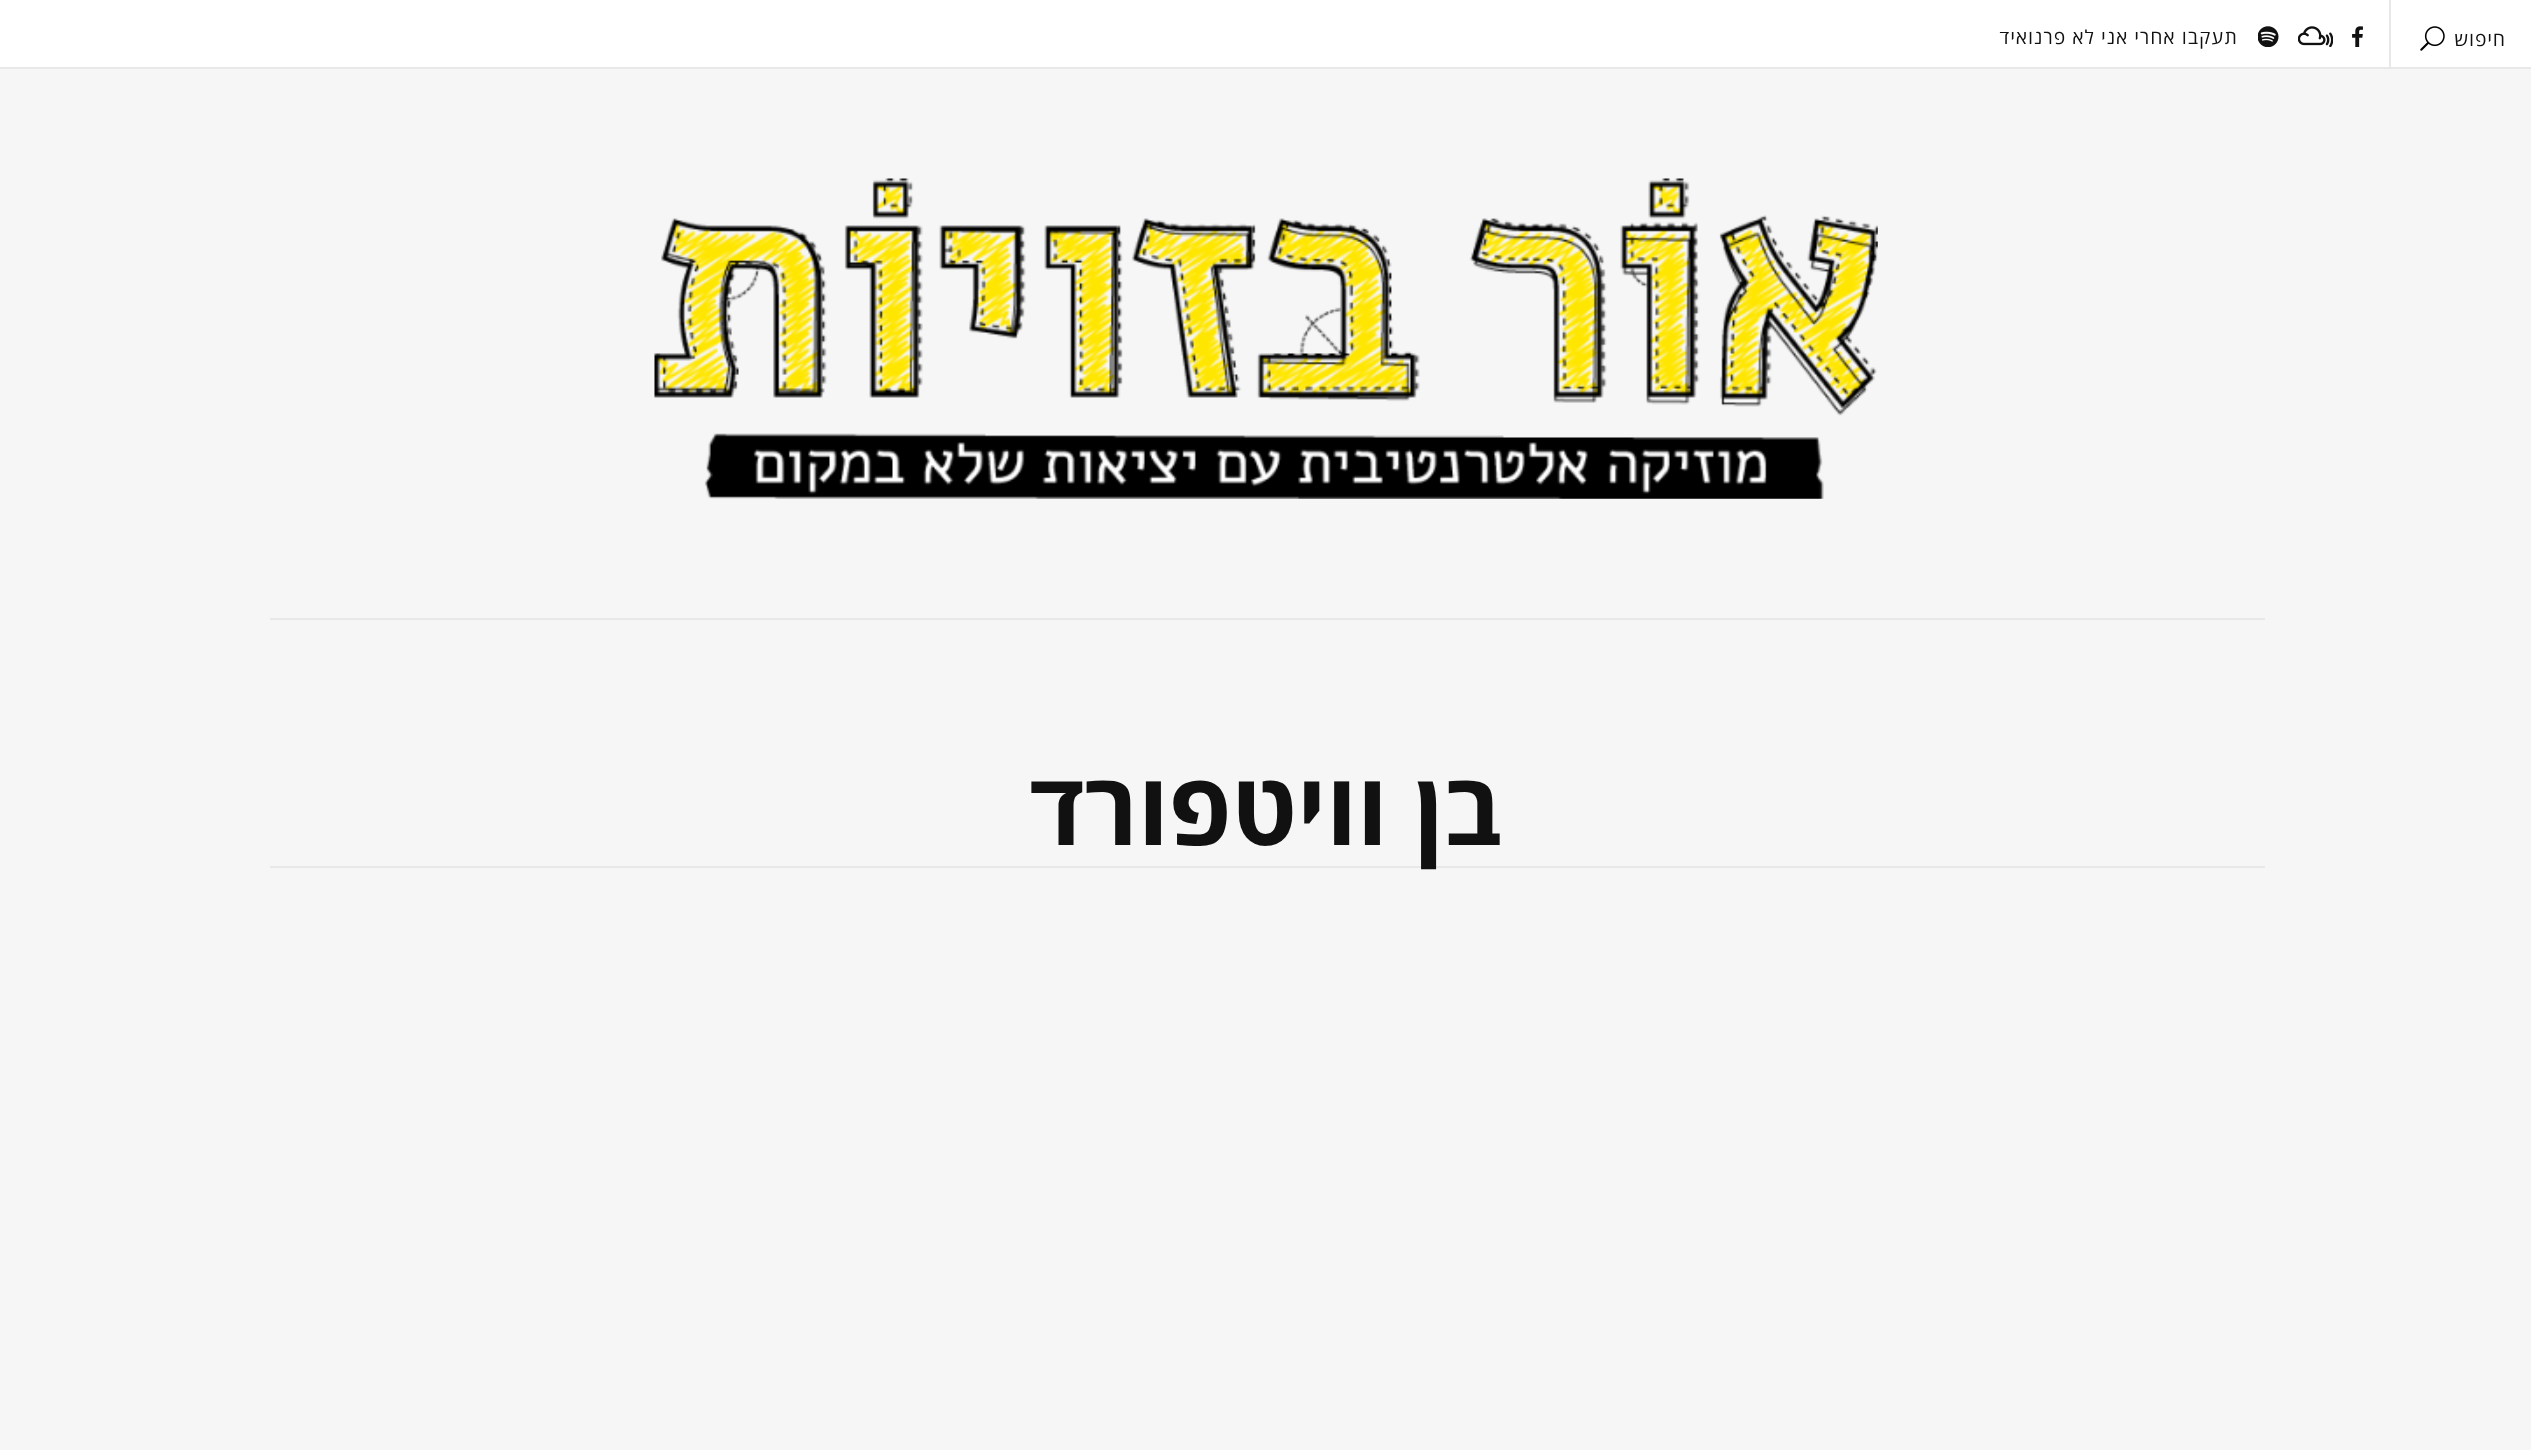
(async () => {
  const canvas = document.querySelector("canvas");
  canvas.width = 2531;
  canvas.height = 1450;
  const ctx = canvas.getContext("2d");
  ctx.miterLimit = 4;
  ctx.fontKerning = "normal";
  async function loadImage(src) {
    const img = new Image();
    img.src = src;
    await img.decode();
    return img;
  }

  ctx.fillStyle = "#f6f6f6";
  ctx.fillRect(0, 0, 2531, 1450);
  for (const [x, y, w, h, color] of [
    [0, 0, 2531, 67, "#ffffff"],
    [0, 67, 2531, 2, "#e8e8e8"],
    [2389, 0, 2, 67, "#e8e8e8"],
  ]) {
    ctx.fillStyle = color;
    ctx.fillRect(x, y, w, h);
  }
  ctx.drawImage(await loadImage("img/1.png"), 2420, 26, 25, 25);
  ctx.drawImage(await loadImage("img/2.png"), 2352, 26, 11, 21);
  ctx.drawImage(await loadImage("img/3.png"), 2298, 26, 35, 21);
  ctx.drawImage(await loadImage("img/4.png"), 2258, 26, 21, 21);
  ctx.drawImage(await loadImage("img/5.png"), 654, 178, 1224, 321);
  ctx.fillRect(270, 618, 1995, 2);
  ctx.fillRect(270, 866, 1995, 2);
  ctx.letterSpacing = "1.25px";
  ctx.direction = "rtl";
  ctx.font = "19.25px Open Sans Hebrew";
  ctx.fillStyle = "#111111";
  ctx.fillText("חיפוש", 2506, 46);
  ctx.fillText("תעקבו אחרי אני לא פרנואיד", 2238, 44);
  ctx.letterSpacing = "0px";
  ctx.font = "bold 101px Open Sans Hebrew";
  ctx.fillText("בן וויטפורד", 1502, 845);
})();
